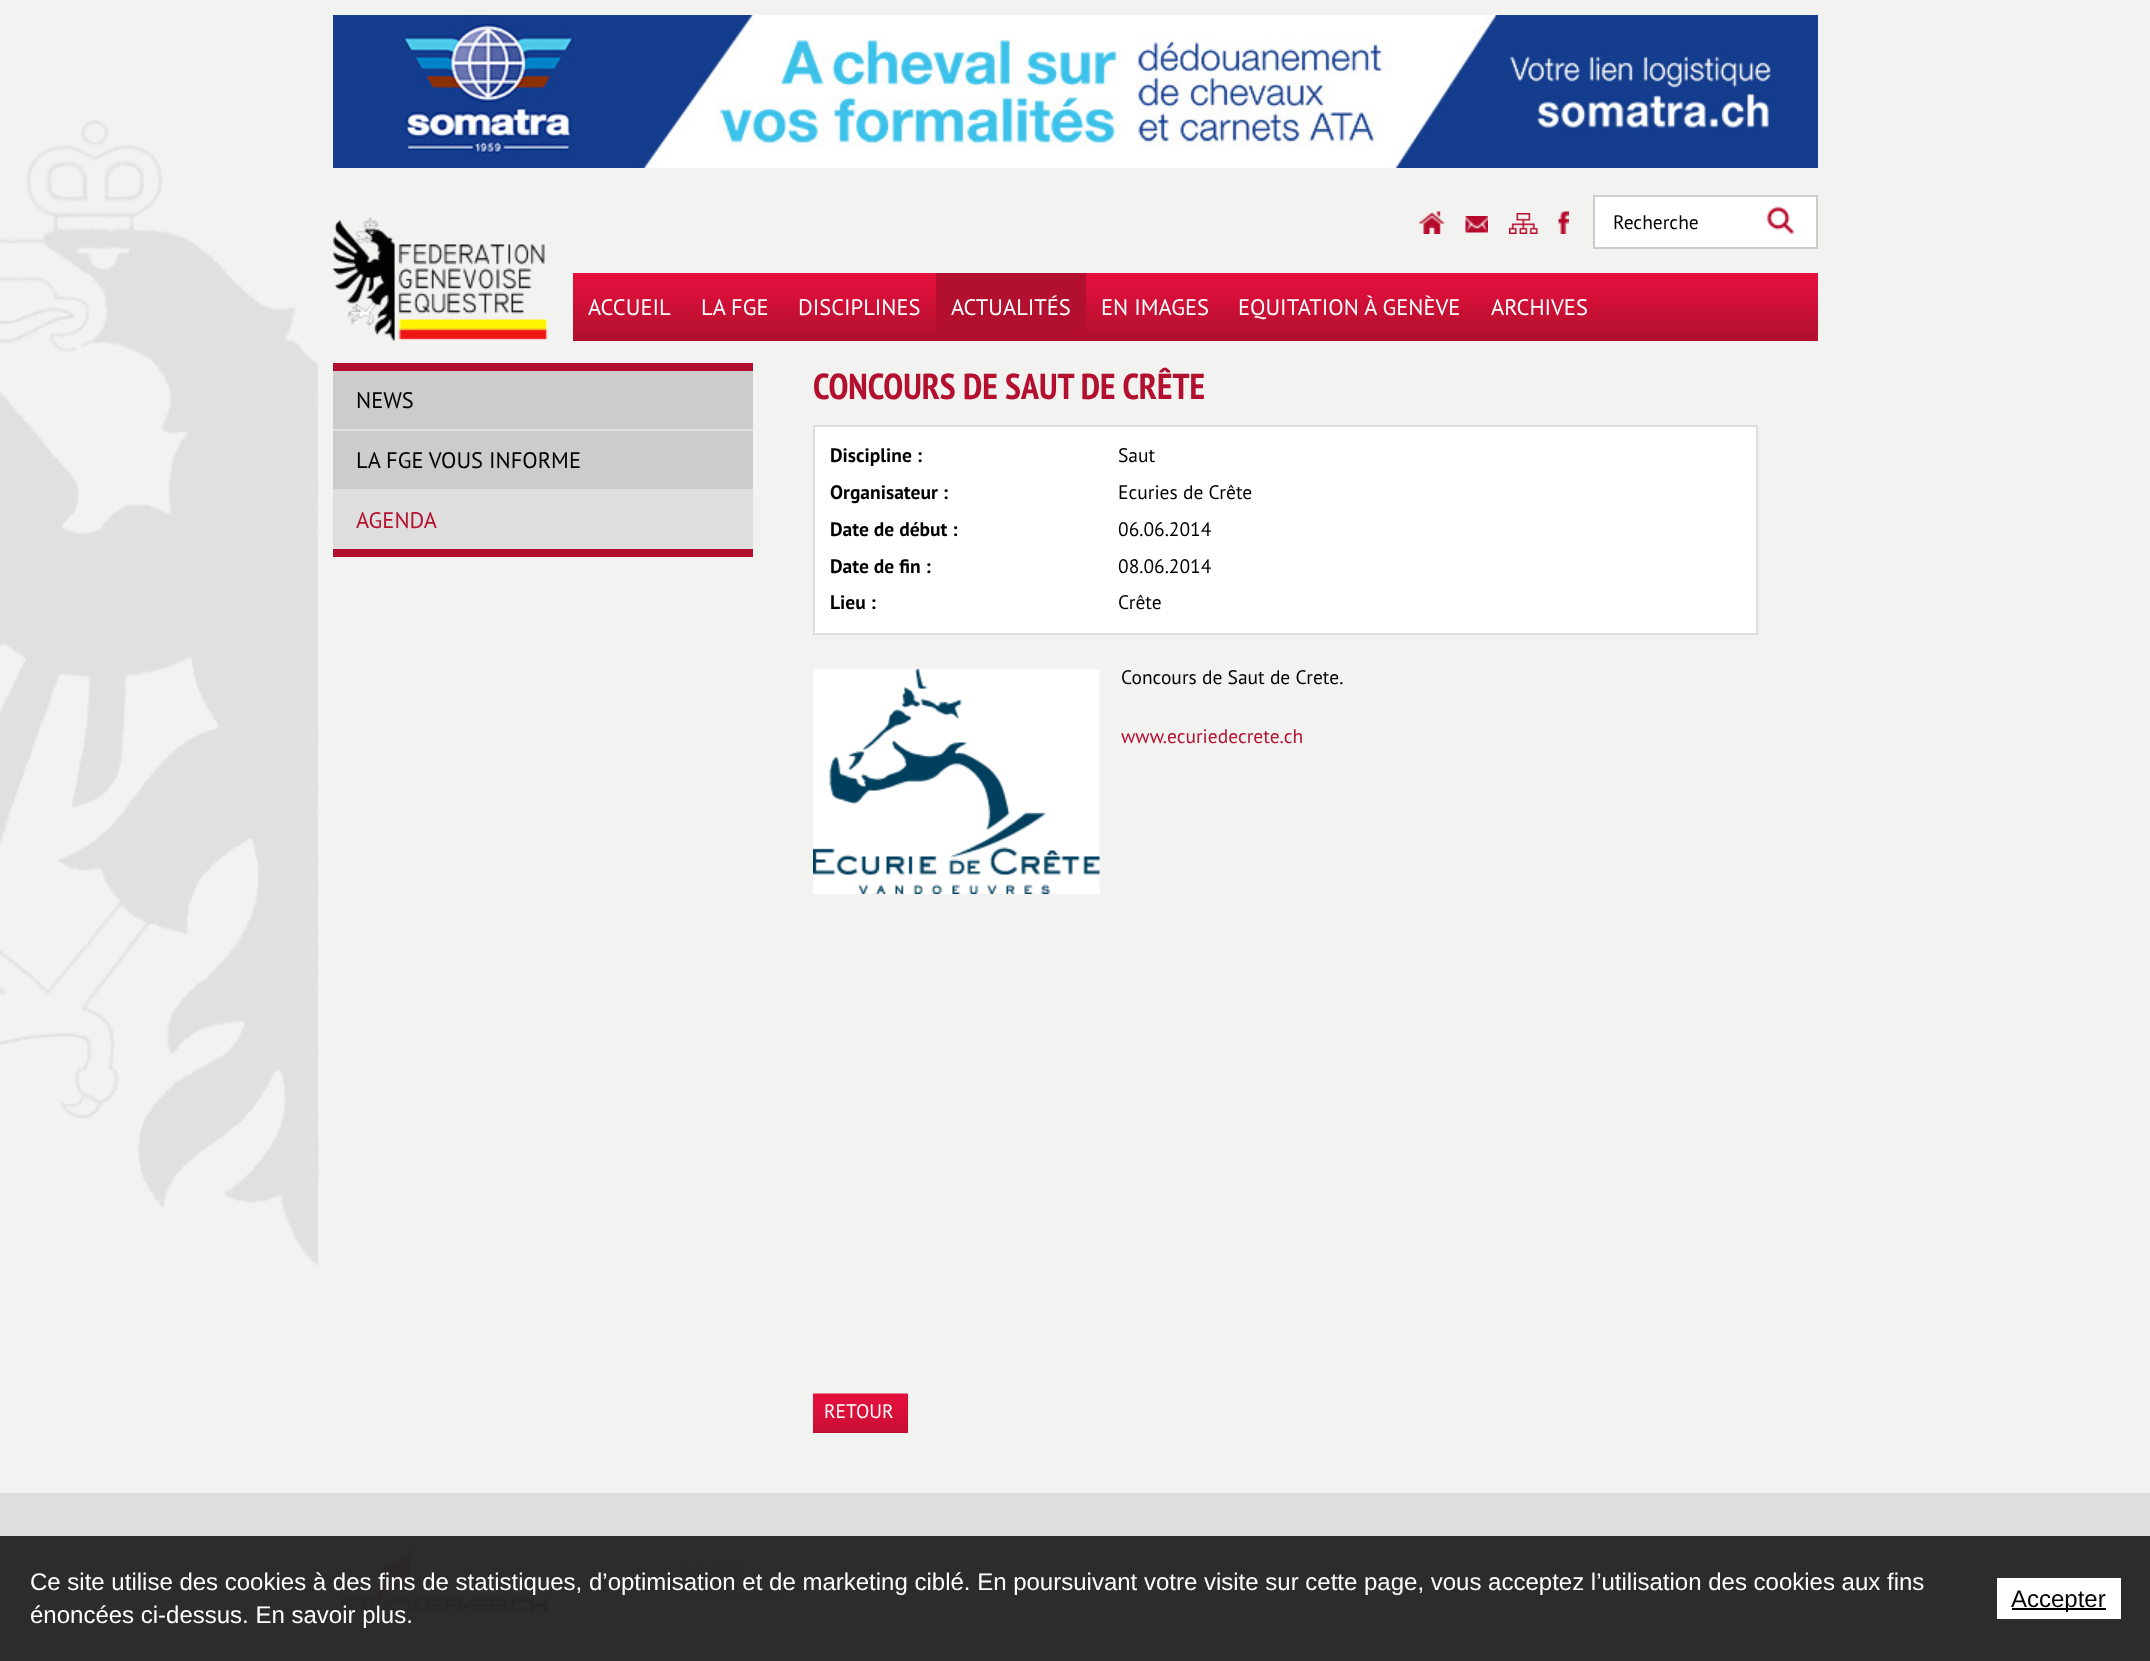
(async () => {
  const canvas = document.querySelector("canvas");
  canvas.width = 2150;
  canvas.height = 1661;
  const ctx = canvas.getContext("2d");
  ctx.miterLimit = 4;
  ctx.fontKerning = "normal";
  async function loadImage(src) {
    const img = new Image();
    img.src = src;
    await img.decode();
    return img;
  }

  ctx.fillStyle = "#f2f2f0";
  ctx.fillRect(0, 0, 2150, 1661);
  ctx.drawImage(await loadImage("img/1.png"), 0, 120, 319, 1146);
  ctx.drawImage(await loadImage("img/2.png"), 333, 15, 1485, 153);
  ctx.drawImage(await loadImage("img/3.png"), 333, 217, 215, 124);
  ctx.drawImage(await loadImage("img/4.png"), 1419, 211, 26, 23);
  ctx.drawImage(await loadImage("img/5.png"), 1465, 216, 23, 17);
  ctx.drawImage(await loadImage("img/6.png"), 1509, 213, 29, 21);
  ctx.drawImage(await loadImage("img/7.png"), 1558, 211, 11, 23);
  ctx.fillStyle = "#ffffff";
  ctx.beginPath();
  ctx.rect(1594, 196, 223, 52);
  ctx.fill();
  ctx.strokeStyle = "#cccccc";
  ctx.lineWidth = 2;
  ctx.stroke();
  ctx.drawImage(await loadImage("img/8.png"), 1766, 206, 29, 29);
  ctx.fillStyle = "#b3102f";
  ctx.fillRect(573, 332, 1245, 9);
  ctx.drawImage(await loadImage("img/9.png"), 573, 273, 1245, 59);
  for (const [x, y, w, h, color] of [
    [936, 273, 150, 59, "#b3102f"],
    [333, 363, 420, 8, "#b3102f"],
    [333, 549, 420, 8, "#b3102f"],
    [333, 371, 420, 58, "#cccccc"],
    [333, 429, 420, 2, "#dedede"],
    [333, 431, 420, 58, "#cccccc"],
    [333, 489, 420, 60, "#dedede"],
  ]) {
    ctx.fillStyle = color;
    ctx.fillRect(x, y, w, h);
  }
  ctx.fillStyle = "#ffffff";
  ctx.beginPath();
  ctx.rect(814, 426, 943, 208);
  ctx.fill();
  ctx.strokeStyle = "#dedede";
  ctx.stroke();
  ctx.drawImage(await loadImage("img/10.png"), 813, 669, 287, 225);
  ctx.fillStyle = "#b3102f";
  ctx.fillRect(813, 1394, 95, 39);
  ctx.drawImage(await loadImage("img/11.png"), 813, 1393, 95, 40);
  ctx.fillStyle = "#dedede";
  ctx.fillRect(0, 1493, 2150, 43);
  ctx.fillStyle = "#2c2c2c";
  ctx.fillRect(0, 1536, 2150, 125);
  ctx.drawImage(await loadImage("img/12.png"), 340, 1547, 208, 65);
  ctx.drawImage(await loadImage("img/13.png"), 679, 1566, 107, 31);
  ctx.fillStyle = "#ffffff";
  ctx.fillRect(1997, 1578, 124, 41);
  ctx.fillStyle = "#000000";
  ctx.fillRect(2012, 1608, 94, 2);
  ctx.font = "19.5px PT Sans";
  ctx.fillText("Recherche", 1613, 229);
  ctx.font = "22.5px PT Sans";
  ctx.fillStyle = "#ffffff";
  for (const [text, x, y] of [
    ["ACCUEIL", 588, 315],
    ["LA FGE", 701, 315],
    ["DISCIPLINES", 798, 315],
    ["ACTUALITÉS", 951, 315],
    ["EN IMAGES", 1101, 315],
    ["EQUITATION À GENÈVE", 1238, 315],
    ["ARCHIVES", 1491, 315],
  ]) {
    ctx.fillText(text, x, y);
  }
  ctx.fillStyle = "#000000";
  ctx.fillText("NEWS", 356, 408);
  ctx.fillText("LA FGE VOUS INFORME", 356, 468);
  ctx.fillStyle = "#b3102f";
  ctx.fillText("AGENDA", 356, 528);
  ctx.font = "bold 36px PT Sans Narrow";
  ctx.fillText("CONCOURS DE SAUT DE CRÊTE", 813, 399);
  ctx.font = "bold 19.5px PT Sans";
  ctx.fillStyle = "#000000";
  ctx.fillText("Discipline :", 830, 462);
  ctx.font = "19.5px PT Sans";
  ctx.fillText("Saut", 1118, 462);
  ctx.font = "bold 19.5px PT Sans";
  ctx.fillText("Organisateur :", 830, 499);
  ctx.font = "19.5px PT Sans";
  ctx.fillText("Ecuries de Crête", 1118, 499);
  ctx.font = "bold 19.5px PT Sans";
  ctx.fillText("Date de début :", 830, 536);
  ctx.font = "19.5px PT Sans";
  ctx.fillText("06.06.2014", 1118, 536);
  ctx.font = "bold 19.5px PT Sans";
  ctx.fillText("Date de fin :", 830, 573);
  ctx.font = "19.5px PT Sans";
  ctx.fillText("08.06.2014", 1118, 573);
  ctx.font = "bold 19.5px PT Sans";
  ctx.fillText("Lieu :", 830, 609);
  ctx.font = "19.5px PT Sans";
  ctx.fillText("Crête", 1118, 609);
  ctx.fillText("Concours de Saut de Crete.", 1121, 684);
  ctx.fillStyle = "#b3102f";
  ctx.fillText("www.ecuriedecrete.ch", 1121, 743);
  ctx.fillStyle = "#ffffff";
  ctx.fillText("RETOUR", 824, 1418);
  ctx.font = "24px Liberation Sans";
  ctx.fillText("Ce site utilise des cookies à des fins de statistiques, d’optimisation et de marketing ciblé. En poursuivant votre visite sur cette page, vous acceptez l’utilisation des cookies aux fins", 30, 1590);
  ctx.fillText("énoncées ci-dessus. En savoir plus.", 30, 1623);
  ctx.fillStyle = "#000000";
  ctx.fillText("Accepter", 2011, 1607);
})();
